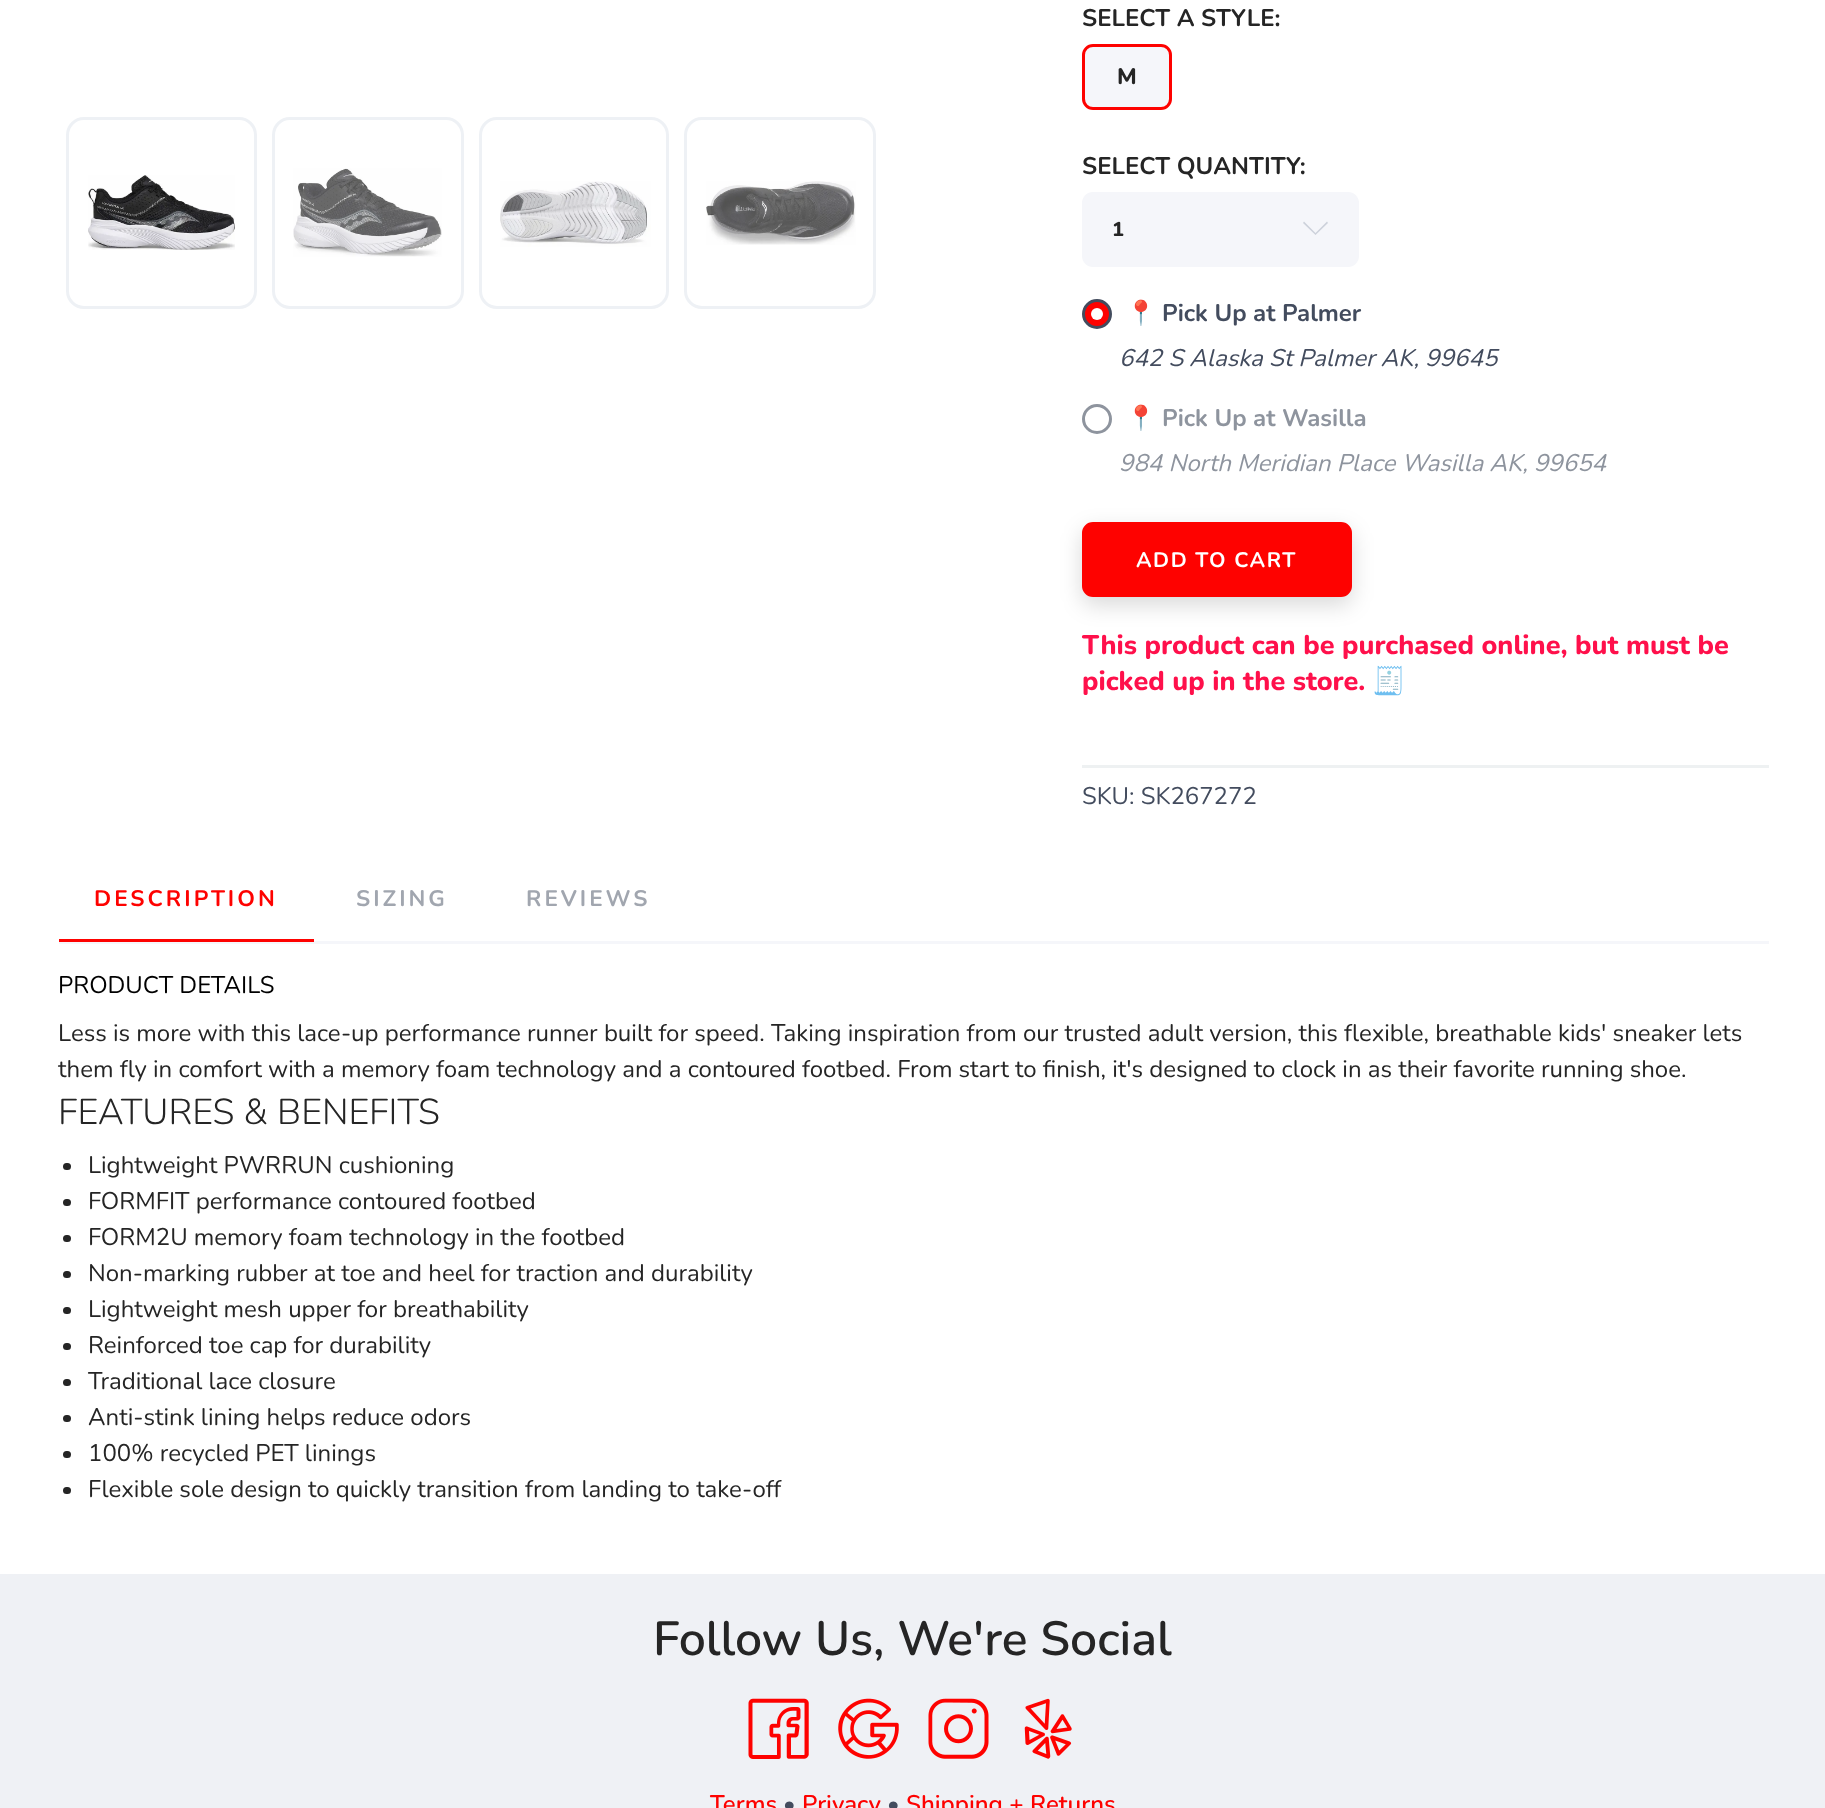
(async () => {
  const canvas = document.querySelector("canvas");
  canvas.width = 1825;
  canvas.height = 1808;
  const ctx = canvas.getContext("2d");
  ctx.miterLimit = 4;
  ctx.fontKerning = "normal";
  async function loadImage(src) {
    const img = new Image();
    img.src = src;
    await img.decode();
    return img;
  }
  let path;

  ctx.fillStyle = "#ffffff";
  ctx.fillRect(0, 0, 1825, 1808);
  ctx.beginPath();
  ctx.roundRect(67.5, 118.5, 188, 189, 16.5);
  ctx.strokeStyle = "#eef1f5";
  ctx.lineWidth = 3;
  ctx.stroke();
  ctx.drawImage(await loadImage("img/1.png"), 88, 175, 147, 75);
  ctx.beginPath();
  ctx.roundRect(273.5, 118.5, 189, 189, 16.5);
  ctx.stroke();
  ctx.drawImage(await loadImage("img/2.png"), 293, 168, 149, 89);
  ctx.beginPath();
  ctx.roundRect(480.5, 118.5, 187, 189, 16.5);
  ctx.stroke();
  ctx.drawImage(await loadImage("img/3.png"), 500, 181, 151, 66);
  ctx.beginPath();
  ctx.roundRect(685.5, 118.5, 189, 189, 16.5);
  ctx.stroke();
  ctx.drawImage(await loadImage("img/4.png"), 706, 181, 150, 64);
  ctx.fillStyle = "#f5f6fa";
  ctx.beginPath();
  ctx.roundRect(1083.5, 45.5, 87, 63, 9.5);
  ctx.fill();
  ctx.strokeStyle = "#fe0200";
  ctx.stroke();
  ctx.beginPath();
  ctx.roundRect(1082, 192, 277, 75, 11);
  ctx.fill();
  ctx.fillStyle = "#cdd2db";
  path = new Path2D("M1328 223L1315.5 235L1303 223L1304 221.5L1315.5 233L1327 221.5Z");
  ctx.fill(path);
  ctx.fillStyle = "#fe0200";
  ctx.beginPath();
  ctx.arc(1097, 314, 13.5, 0, Math.PI * 2);
  ctx.fill();
  ctx.strokeStyle = "#434c5e";
  ctx.stroke();
  ctx.fillStyle = "#ffffff";
  ctx.beginPath();
  ctx.arc(1097, 314, 6, 0, Math.PI * 2);
  ctx.fill();
  ctx.beginPath();
  ctx.arc(1097, 419, 13.5, 0, Math.PI * 2);
  ctx.strokeStyle = "#8e949e";
  ctx.stroke();
  ctx.fillStyle = "rgba(0, 0, 0, 0.15)";
  ctx.filter = "blur(11px)";
  ctx.beginPath();
  ctx.roundRect(1082, 530, 270, 75, 11);
  ctx.fill();
  ctx.filter = "none";
  ctx.fillStyle = "#fe0200";
  ctx.beginPath();
  ctx.roundRect(1083.5, 523.5, 267, 72, 9.5);
  ctx.fill();
  ctx.strokeStyle = "#fe0200";
  ctx.stroke();
  for (const [x, y, w, h, color] of [
    [1082, 765, 687, 3, "#eef1f2"],
    [59, 941, 1710, 3, "#f5f6fa"],
    [59, 939, 255, 3, "#fe0200"],
  ]) {
    ctx.fillStyle = color;
    ctx.fillRect(x, y, w, h);
  }
  ctx.fillStyle = "#252525";
  ctx.beginPath();
  ctx.roundRect(63, 1163, 8, 7, 3.5);
  ctx.fill();
  ctx.beginPath();
  ctx.roundRect(63, 1199, 8, 7, 3.5);
  ctx.fill();
  ctx.beginPath();
  ctx.roundRect(63, 1235, 8, 7, 3.5);
  ctx.fill();
  ctx.beginPath();
  ctx.roundRect(63, 1271, 8, 7, 3.5);
  ctx.fill();
  ctx.beginPath();
  ctx.roundRect(63, 1307, 8, 7, 3.5);
  ctx.fill();
  ctx.beginPath();
  ctx.roundRect(63, 1343, 8, 7, 3.5);
  ctx.fill();
  ctx.beginPath();
  ctx.roundRect(63, 1379, 8, 7, 3.5);
  ctx.fill();
  ctx.beginPath();
  ctx.roundRect(63, 1415, 8, 7, 3.5);
  ctx.fill();
  ctx.beginPath();
  ctx.roundRect(63, 1451, 8, 7, 3.5);
  ctx.fill();
  ctx.beginPath();
  ctx.roundRect(63, 1487, 8, 7, 3.5);
  ctx.fill();
  ctx.fillStyle = "#eff1f5";
  ctx.fillRect(0, 1574, 1825, 234);
  ctx.drawImage(await loadImage("img/5.png"), 748, 1698, 61, 61);
  ctx.drawImage(await loadImage("img/6.png"), 838, 1698, 61, 61);
  ctx.drawImage(await loadImage("img/7.png"), 928, 1698, 61, 61);
  ctx.drawImage(await loadImage("img/8.png"), 1024, 1698, 48, 61);
  ctx.font = "bold 24px Nunito";
  ctx.fillStyle = "#252525";
  ctx.fillText("SELECT A STYLE:", 1082, 26);
  ctx.font = "800 22.5px Nunito";
  ctx.fillText("M", 1117, 84);
  ctx.font = "bold 24px Nunito";
  ctx.fillText("SELECT QUANTITY:", 1082, 174);
  ctx.letterSpacing = "1.5px";
  ctx.font = "800 20px Nunito";
  ctx.fillText("1", 1112, 236);
  ctx.letterSpacing = "0px";
  ctx.font = "bold 24px Noto Color Emoji";
  ctx.fillStyle = "#434c5e";
  ctx.fillText("📍", 1126, 321);
  ctx.font = "bold 24px Nunito";
  ctx.fillText("Pick Up at Palmer", 1162, 321);
  ctx.font = "italic 24px Nunito";
  ctx.fillText("642 S Alaska St Palmer AK, 99645", 1119, 366);
  ctx.font = "bold 24px Noto Color Emoji";
  ctx.fillStyle = "#8e949e";
  ctx.fillText("📍", 1126, 426);
  ctx.font = "bold 24px Nunito";
  ctx.fillText("Pick Up at Wasilla", 1162, 426);
  ctx.font = "italic 24px Nunito";
  ctx.fillText("984 North Meridian Place Wasilla AK, 99654", 1119, 471);
  ctx.letterSpacing = "1.5px";
  ctx.font = "bold 21px Nunito";
  ctx.fillStyle = "#ffffff";
  ctx.fillText("ADD TO CART", 1136, 567);
  ctx.letterSpacing = "0px";
  ctx.font = "800 27px Nunito";
  ctx.fillStyle = "#ff104b";
  ctx.fillText("This product can be purchased online, but must be", 1082, 654);
  ctx.fillText("picked up in the store.", 1082, 690);
  ctx.font = "bold 27px Noto Color Emoji";
  ctx.fillText("🧾", 1372, 690);
  ctx.font = "24px Nunito";
  ctx.fillStyle = "#434c5e";
  ctx.fillText("SKU: SK267272", 1082, 804);
  ctx.letterSpacing = "3px";
  ctx.font = "bold 22.5px Nunito";
  ctx.fillStyle = "#fe0200";
  ctx.fillText("DESCRIPTION", 94, 906);
  ctx.fillStyle = "#a1a6af";
  ctx.fillText("SIZING", 356, 906);
  ctx.fillText("REVIEWS", 526, 906);
  ctx.letterSpacing = "0px";
  ctx.font = "24px Nunito";
  ctx.fillStyle = "#000000";
  ctx.fillText("PRODUCT DETAILS", 58, 993);
  ctx.fillStyle = "#252525";
  ctx.fillText("Less is more with this lace-up performance runner built for speed. Taking inspiration from our trusted adult version, this flexible, breathable kids' sneaker lets", 58, 1041);
  ctx.fillText("them fly in comfort with a memory foam technology and a contoured footbed. From start to finish, it's designed to clock in as their favorite running shoe.", 58, 1077);
  ctx.font = "300 36px Nunito";
  ctx.fillText("FEATURES & BENEFITS", 58, 1124);
  ctx.font = "24px Nunito";
  for (const [text, x, y] of [
    ["Lightweight PWRRUN cushioning", 88, 1173],
    ["FORMFIT performance contoured footbed", 88, 1209],
    ["FORM2U memory foam technology in the footbed", 88, 1245],
    ["Non-marking rubber at toe and heel for traction and durability", 88, 1281],
    ["Lightweight mesh upper for breathability", 88, 1317],
    ["Reinforced toe cap for durability", 88, 1353],
    ["Traditional lace closure", 88, 1389],
    ["Anti-stink lining helps reduce odors", 88, 1425],
    ["100% recycled PET linings", 88, 1461],
    ["Flexible sole design to quickly transition from landing to take-off", 88, 1497],
  ]) {
    ctx.fillText(text, x, y);
  }
  ctx.font = "600 48px Nunito";
  ctx.fillText("Follow Us, We're Social", 653, 1655);
  ctx.font = "600 24px Nunito";
  ctx.fillStyle = "#fe0200";
  ctx.fillText("Terms", 710, 1812);
  ctx.font = "24px Nunito";
  ctx.fillStyle = "#434c5e";
  ctx.fillText("•", 783, 1812);
  ctx.font = "600 24px Nunito";
  ctx.fillStyle = "#fe0200";
  ctx.fillText("Privacy", 802, 1812);
  ctx.font = "24px Nunito";
  ctx.fillStyle = "#434c5e";
  ctx.fillText("•", 887, 1812);
  ctx.font = "600 24px Nunito";
  ctx.fillStyle = "#fe0200";
  ctx.fillText("Shipping + Returns", 906, 1812);
})();
